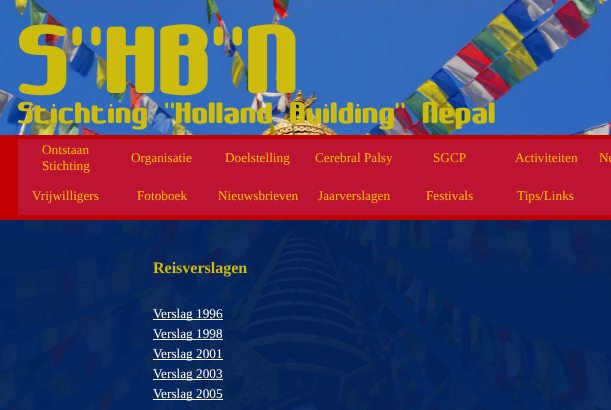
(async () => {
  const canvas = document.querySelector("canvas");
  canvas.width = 611;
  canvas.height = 410;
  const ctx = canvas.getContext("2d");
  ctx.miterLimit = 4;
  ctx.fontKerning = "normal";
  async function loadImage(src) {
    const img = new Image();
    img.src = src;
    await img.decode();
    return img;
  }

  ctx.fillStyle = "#ffffff";
  ctx.fillRect(0, 0, 611, 410);
  ctx.drawImage(await loadImage("img/1.png"), 0, 0, 611, 410);
  ctx.drawImage(await loadImage("img/2.png"), 0, 24, 611, 196);
  for (const [x, y, w, h, color] of [
    [18, 139, 593, 38, "#bd1431"],
    [18, 177, 593, 38, "#bd1431"],
    [0, 220, 611, 190, "rgba(2, 35, 91, 0.95)"],
    [153, 319, 70, 1, "#ffffff"],
    [153, 339, 70, 1, "#ffffff"],
    [153, 359, 70, 1, "#ffffff"],
    [153, 379, 70, 1, "#ffffff"],
    [153, 399, 70, 1, "#ffffff"],
  ]) {
    ctx.fillStyle = color;
    ctx.fillRect(x, y, w, h);
  }
  ctx.font = "13.25px Liberation Serif";
  ctx.fillStyle = "#ffbf00";
  for (const [text, x, y] of [
    ["Ontstaan", 42, 154],
    ["Stichting", 42, 170],
    ["Organisatie", 131, 162],
    ["Doelstelling", 225, 162],
    ["Cerebral Palsy", 315, 162],
    ["SGCP", 433, 162],
    ["Activiteiten", 515, 162],
    ["Ne", 599, 162],
    ["Vrijwilligers", 32, 200],
    ["Fotoboek", 137, 200],
    ["Nieuwsbrieven", 218, 200],
    ["Jaarverslagen", 318, 200],
    ["Festivals", 426, 200],
    ["Tips/Links", 517, 200],
  ]) {
    ctx.fillText(text, x, y);
  }
  ctx.font = "bold 16px Liberation Serif";
  ctx.fillStyle = "#cdbc0e";
  ctx.fillText("Reisverslagen", 153, 273);
  ctx.font = "13.25px Liberation Serif";
  ctx.fillStyle = "#ffffff";
  for (const [text, x, y] of [
    ["Verslag 1996", 153, 318],
    ["Verslag 1998", 153, 338],
    ["Verslag 2001", 153, 358],
    ["Verslag 2003", 153, 378],
    ["Verslag 2005", 153, 398],
  ]) {
    ctx.fillText(text, x, y);
  }
})();
